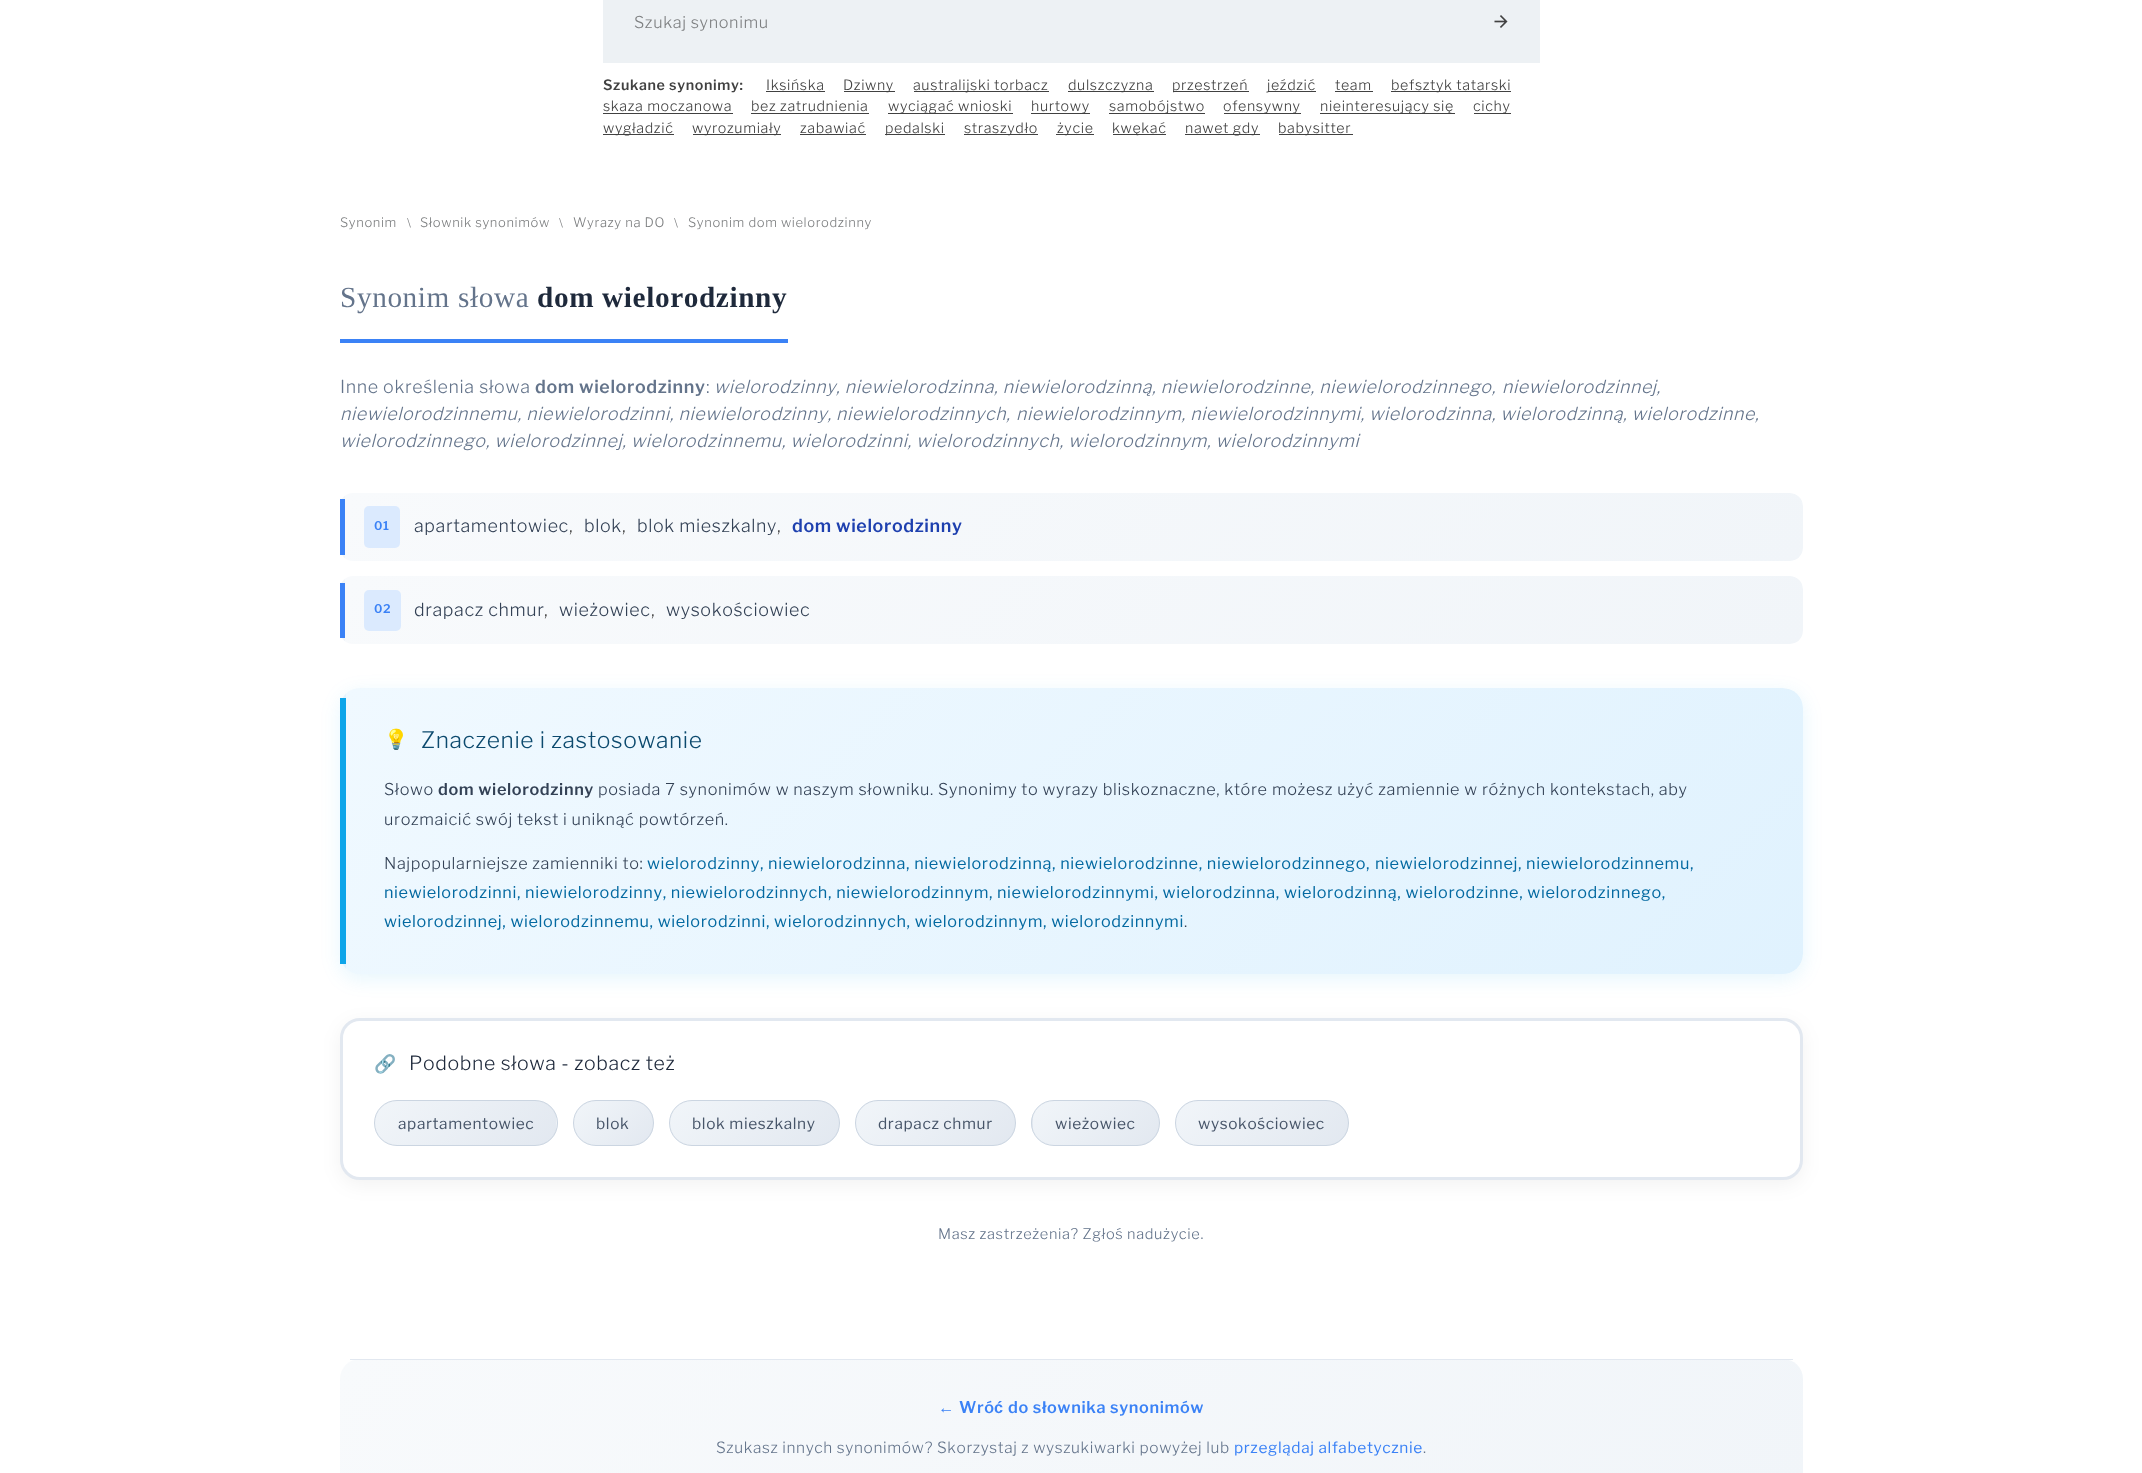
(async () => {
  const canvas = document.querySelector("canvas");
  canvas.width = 2142;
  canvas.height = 1473;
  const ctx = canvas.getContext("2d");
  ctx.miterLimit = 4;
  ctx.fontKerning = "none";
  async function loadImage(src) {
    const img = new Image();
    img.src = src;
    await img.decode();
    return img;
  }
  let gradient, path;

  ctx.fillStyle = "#ffffff";
  ctx.fillRect(0, 0, 2142, 1473);
  ctx.fillStyle = "#edf1f4";
  ctx.fillRect(603, 0, 937, 63);
  ctx.drawImage(await loadImage("img/1.png"), 1494, 15, 14, 13);
  for (const [x, y, w, h, color] of [
    [766, 91, 59, 1, "#414141"],
    [844, 91, 51, 1, "#414141"],
    [914, 91, 135, 1, "#414141"],
    [1068, 91, 86, 1, "#414141"],
    [1173, 91, 76, 1, "#414141"],
    [1268, 91, 48, 1, "#414141"],
    [1335, 91, 38, 1, "#414141"],
    [1391, 91, 120, 1, "#414141"],
    [603, 113, 130, 1, "#414141"],
    [751, 113, 118, 1, "#414141"],
    [888, 113, 125, 1, "#414141"],
    [1031, 113, 59, 1, "#414141"],
    [1109, 113, 96, 1, "#414141"],
    [1224, 113, 77, 1, "#414141"],
    [1320, 113, 135, 1, "#414141"],
    [1474, 113, 37, 1, "#414141"],
    [603, 134, 71, 1, "#414141"],
    [693, 134, 88, 1, "#414141"],
    [800, 134, 66, 1, "#414141"],
    [885, 134, 60, 1, "#414141"],
    [964, 134, 74, 1, "#414141"],
    [1056, 134, 38, 1, "#414141"],
    [1113, 134, 53, 1, "#414141"],
    [1185, 134, 75, 1, "#414141"],
    [1279, 134, 74, 1, "#414141"],
    [340, 339, 448, 4, "#3b82f6"],
  ]) {
    ctx.fillStyle = color;
    ctx.fillRect(x, y, w, h);
  }
  ctx.save();
  ctx.beginPath();
  ctx.roundRect(340, 493, 1463, 68, 13);
  ctx.clip();
  gradient = ctx.createLinearGradient(-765, 145, -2.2, 908);
  gradient.addColorStop(0, "#f8fafc");
  gradient.addColorStop(1, "#f1f5f9");
  ctx.fillStyle = gradient;
  ctx.fillRect(342, 493, 3, 68);
  gradient = ctx.createLinearGradient(692, 145, 1455, 908);
  gradient.addColorStop(0, "#f8fafc");
  gradient.addColorStop(1, "#f1f5f9");
  ctx.fillStyle = gradient;
  ctx.beginPath();
  ctx.roundRect(345, 493, 1458, 68, [0, 13, 13, 0]);
  ctx.fill();
  ctx.restore();
  ctx.fillRect(340, 499, 5, 56);
  ctx.fillStyle = "#dbeafe";
  ctx.beginPath();
  ctx.roundRect(364, 506, 36, 42, 5);
  ctx.fill();
  ctx.save();
  ctx.beginPath();
  ctx.roundRect(340, 576, 1463, 68, 13);
  ctx.clip();
  gradient = ctx.createLinearGradient(-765, 229, -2.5, 991);
  gradient.addColorStop(0, "#f8fafc");
  gradient.addColorStop(1, "#f1f5f9");
  ctx.fillStyle = gradient;
  ctx.fillRect(341, 576, 4, 68);
  gradient = ctx.createLinearGradient(693, 229, 1455, 991);
  gradient.addColorStop(0, "#f8fafc");
  gradient.addColorStop(1, "#f1f5f9");
  ctx.fillStyle = gradient;
  ctx.beginPath();
  ctx.roundRect(345, 576, 1458, 68, [0, 13, 13, 0]);
  ctx.fill();
  ctx.restore();
  ctx.fillStyle = "#3b82f6";
  ctx.fillRect(340, 583, 5, 55);
  ctx.fillStyle = "#dbeafe";
  ctx.beginPath();
  ctx.roundRect(364, 590, 37, 41, 5);
  ctx.fill();
  ctx.fillStyle = "rgba(14, 165, 233, 0.1)";
  ctx.filter = "blur(9.5px)";
  ctx.beginPath();
  ctx.roundRect(340, 693, 1463, 286, 20);
  ctx.fill();
  ctx.filter = "none";
  ctx.save();
  ctx.beginPath();
  ctx.roundRect(340, 688, 1463, 286, 20);
  ctx.clip();
  gradient = ctx.createLinearGradient(-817, 395, 54, 1266);
  gradient.addColorStop(0, "#f0f9ff");
  gradient.addColorStop(1, "#e0f2fe");
  ctx.fillStyle = gradient;
  ctx.fillRect(342, 688, 4, 286);
  gradient = ctx.createLinearGradient(639, 395, 1510, 1266);
  gradient.addColorStop(0, "#f0f9ff");
  gradient.addColorStop(1, "#e0f2fe");
  ctx.fillStyle = gradient;
  ctx.beginPath();
  ctx.roundRect(346, 688, 1457, 286, [0, 20, 20, 0]);
  ctx.fill();
  ctx.restore();
  ctx.fillStyle = "#0ea5e9";
  ctx.fillRect(340, 698, 6, 266);
  ctx.fillStyle = "rgba(0, 0, 0, 0.05)";
  ctx.filter = "blur(9.5px)";
  ctx.beginPath();
  ctx.roundRect(340, 1023, 1463, 162, 20);
  ctx.fill();
  ctx.filter = "none";
  ctx.fillStyle = "#ffffff";
  ctx.beginPath();
  ctx.roundRect(341.5, 1019.5, 1460, 159, 18.5);
  ctx.fill();
  ctx.strokeStyle = "#e2e8f0";
  ctx.lineWidth = 3;
  ctx.stroke();
  ctx.save();
  ctx.beginPath();
  ctx.roundRect(374, 1100, 184, 46, 23);
  ctx.clip();
  gradient = ctx.createLinearGradient(409, 1067, 522, 1179);
  gradient.addColorStop(0, "#f1f5f9");
  gradient.addColorStop(1, "#e2e8f0");
  ctx.fillStyle = gradient;
  ctx.fillRect(375, 1101, 181, 44);
  gradient = ctx.createLinearGradient(591, 1067, 703, 1179);
  gradient.addColorStop(0, "#f1f5f9");
  gradient.addColorStop(1, "#e2e8f0");
  ctx.fillStyle = gradient;
  ctx.fillRect(556, 1113, 2, 20);
  ctx.restore();
  ctx.beginPath();
  ctx.roundRect(374.5, 1100.5, 183, 45, 22.5);
  ctx.strokeStyle = "#cbd5e1";
  ctx.lineWidth = 1;
  ctx.stroke();
  ctx.save();
  ctx.beginPath();
  ctx.roundRect(573, 1100, 81, 46, 23);
  ctx.clip();
  gradient = ctx.createLinearGradient(583, 1093, 644, 1154);
  gradient.addColorStop(0, "#f1f5f9");
  gradient.addColorStop(1, "#e2e8f0");
  ctx.fillStyle = gradient;
  ctx.fillRect(574, 1101, 79, 44);
  ctx.restore();
  ctx.beginPath();
  ctx.roundRect(573.5, 1100.5, 80, 45, 22.5);
  ctx.stroke();
  ctx.save();
  ctx.beginPath();
  ctx.roundRect(669, 1100, 171, 46, 23);
  ctx.clip();
  gradient = ctx.createLinearGradient(701, 1070, 808, 1176);
  gradient.addColorStop(0, "#f1f5f9");
  gradient.addColorStop(1, "#e2e8f0");
  ctx.fillStyle = gradient;
  ctx.fillRect(670, 1101, 169, 44);
  ctx.restore();
  ctx.beginPath();
  ctx.roundRect(669.5, 1100.5, 170, 45, 22.5);
  ctx.stroke();
  ctx.save();
  ctx.beginPath();
  ctx.roundRect(855, 1100, 161, 46, 23);
  ctx.clip();
  gradient = ctx.createLinearGradient(885, 1073, 986, 1174);
  gradient.addColorStop(0, "#f1f5f9");
  gradient.addColorStop(1, "#e2e8f0");
  ctx.fillStyle = gradient;
  ctx.fillRect(856, 1101, 159, 44);
  ctx.restore();
  ctx.beginPath();
  ctx.roundRect(855.5, 1100.5, 160, 45, 22.5);
  ctx.stroke();
  ctx.save();
  ctx.beginPath();
  ctx.roundRect(1031, 1100, 129, 46, 23);
  ctx.clip();
  gradient = ctx.createLinearGradient(927, 1081, 1012, 1166);
  gradient.addColorStop(0, "#f1f5f9");
  gradient.addColorStop(1, "#e2e8f0");
  ctx.fillStyle = gradient;
  ctx.fillRect(1031, 1113, 2, 20);
  gradient = ctx.createLinearGradient(1053, 1081, 1138, 1166);
  gradient.addColorStop(0, "#f1f5f9");
  gradient.addColorStop(1, "#e2e8f0");
  ctx.fillStyle = gradient;
  ctx.fillRect(1033, 1101, 126, 44);
  ctx.restore();
  ctx.beginPath();
  ctx.roundRect(1031.5, 1100.5, 128, 45, 22.5);
  ctx.stroke();
  ctx.save();
  ctx.beginPath();
  ctx.roundRect(1175, 1100, 174, 46, 23);
  ctx.clip();
  gradient = ctx.createLinearGradient(1208, 1069, 1316, 1177);
  gradient.addColorStop(0, "#f1f5f9");
  gradient.addColorStop(1, "#e2e8f0");
  ctx.fillStyle = gradient;
  ctx.fillRect(1176, 1101, 172, 44);
  ctx.restore();
  ctx.beginPath();
  ctx.roundRect(1175.5, 1100.5, 173, 45, 22.5);
  ctx.stroke();
  ctx.save();
  ctx.beginPath();
  ctx.roundRect(340, 1359, 1463, 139, 20);
  ctx.clip();
  gradient = ctx.createLinearGradient(671, 1029, 1471, 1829);
  gradient.addColorStop(0, "#f8fafc");
  gradient.addColorStop(1, "#f1f5f9");
  ctx.fillStyle = gradient;
  path = new Path2D("M340 1360H1803V1473C1803 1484 1794 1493 1783 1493H360C349 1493 340 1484 340 1473Z");
  ctx.fill(path);
  ctx.restore();
  ctx.fillStyle = "#e2e8f0";
  ctx.fillRect(350, 1359, 1443, 1);
  ctx.letterSpacing = "0.62px";
  ctx.font = "300 16.25px Libre Franklin";
  ctx.fillStyle = "#7d7f80";
  ctx.fillText("Szukaj synonimu", 634, 28);
  ctx.font = "600 14.25px Libre Franklin";
  ctx.fillStyle = "#414141";
  ctx.fillText("Szukane synonimy:", 603, 90);
  ctx.font = "300 14.25px Libre Franklin";
  for (const [text, x, y] of [
    ["Iksińska", 766, 90],
    ["Dziwny", 843, 90],
    ["australijski torbacz", 913, 90],
    ["dulszczyzna", 1068, 90],
    ["przestrzeń", 1172, 90],
    ["jeździć", 1267, 90],
    ["team", 1335, 90],
    ["befsztyk tatarski", 1391, 90],
    ["skaza moczanowa", 603, 111],
    ["bez zatrudnienia", 751, 111],
    ["wyciągać wnioski", 888, 111],
    ["hurtowy", 1031, 111],
    ["samobójstwo", 1109, 111],
    ["ofensywny", 1223, 111],
    ["nieinteresujący się", 1320, 111],
    ["cichy", 1473, 111],
    ["wygładzić", 603, 133],
    ["wyrozumiały", 692, 133],
    ["zabawiać", 800, 133],
    ["pedalski", 885, 133],
    ["straszydło", 964, 133],
    ["życie", 1057, 133],
    ["kwękać", 1112, 133],
    ["nawet gdy", 1185, 133],
    ["babysitter", 1278, 133],
  ]) {
    ctx.fillText(text, x, y);
  }
  ctx.font = "300 13px Libre Franklin";
  ctx.fillStyle = "#7d7f80";
  ctx.fillText("Synonim", 340, 227);
  ctx.font = "300 12px Libre Franklin";
  ctx.fillText("\\", 407, 227);
  ctx.font = "300 13px Libre Franklin";
  ctx.fillText("Słownik synonimów", 420, 227);
  ctx.font = "300 12px Libre Franklin";
  ctx.fillText("\\", 559, 227);
  ctx.font = "300 13px Libre Franklin";
  ctx.fillText("Wyrazy na DO", 573, 227);
  ctx.font = "300 12px Libre Franklin";
  ctx.fillText("\\", 674, 227);
  ctx.font = "300 13px Libre Franklin";
  ctx.fillText("Synonim dom wielorodzinny", 688, 227);
  ctx.font = "29.25px Liberation Serif";
  ctx.fillStyle = "#64748b";
  ctx.fillText("Synonim słowa", 340, 307);
  ctx.font = "bold 29.25px Liberation Serif";
  ctx.fillStyle = "#1e293b";
  ctx.fillText("dom wielorodzinny", 537, 307);
  ctx.font = "300 17.88px Libre Franklin";
  ctx.fillStyle = "#64748b";
  ctx.fillText("Inne określenia słowa", 340, 393);
  ctx.font = "600 17.88px Libre Franklin";
  ctx.fillText("dom wielorodzinny", 535, 393);
  ctx.font = "300 17.88px Libre Franklin";
  ctx.fillText(":", 706, 393);
  ctx.font = "italic 300 17.88px Libre Franklin";
  for (const [text, x, y] of [
    ["wielorodzinny, niewielorodzinna, niewielorodzinną, niewielorodzinne, niewielorodzinnego,", 714, 393],
    ["niewielorodzinnej,", 1502, 393],
    ["niewielorodzinnemu, niewielorodzinni, niewielorodzinny, niewielorodzinnych,", 340, 420],
    ["niewielorodzinnym, niewielorodzinnymi, wielorodzinna, wielorodzinną, wielorodzinne,", 1016, 420],
    ["wielorodzinnego, wielorodzinnej, wielorodzinnemu, wielorodzinni, wielorodzinnych, wielorodzinnym, wielorodzinnymi", 340, 447],
  ]) {
    ctx.fillText(text, x, y);
  }
  ctx.font = "600 12px Libre Franklin";
  ctx.fillStyle = "#3b82f6";
  ctx.fillText("01", 374, 530);
  ctx.font = "300 17.88px Libre Franklin";
  ctx.fillStyle = "#334155";
  for (const [text, x, y] of [
    ["apartamentowiec", 414, 532],
    ["blok", 584, 532],
    ["blok mieszkalny", 637, 532],
  ]) {
    ctx.fillText(text, x, y);
  }
  ctx.font = "600 17.88px Libre Franklin";
  ctx.fillStyle = "#1e40af";
  ctx.fillText("dom wielorodzinny", 792, 532);
  ctx.font = "300 17.88px Libre Franklin";
  ctx.fillStyle = "#414141";
  for (const [text, x, y] of [
    [",", 569, 532],
    [",", 622, 532],
    [",", 777, 532],
  ]) {
    ctx.fillText(text, x, y);
  }
  ctx.font = "600 12px Libre Franklin";
  ctx.fillStyle = "#3b82f6";
  ctx.fillText("02", 374, 613);
  ctx.font = "300 17.88px Libre Franklin";
  ctx.fillStyle = "#334155";
  for (const [text, x, y] of [
    ["drapacz chmur", 414, 616],
    ["wieżowiec", 559, 616],
    ["wysokościowiec", 666, 616],
  ]) {
    ctx.fillText(text, x, y);
  }
  ctx.fillStyle = "#414141";
  ctx.fillText(",", 544, 616);
  ctx.fillText(",", 651, 616);
  ctx.font = "19.5px Noto Color Emoji";
  ctx.fillStyle = "#0c4a6e";
  ctx.fillText("💡", 384, 746);
  ctx.font = "300 22.75px Libre Franklin";
  ctx.fillText("Znaczenie i zastosowanie", 421, 748);
  ctx.font = "300 16.25px Libre Franklin";
  ctx.fillStyle = "#334155";
  ctx.fillText("Słowo", 384, 795);
  ctx.font = "600 16.25px Libre Franklin";
  ctx.fillText("dom wielorodzinny", 438, 795);
  ctx.font = "300 16.25px Libre Franklin";
  for (const [text, x, y] of [
    ["posiada 7 synonimów w naszym słowniku. Synonimy to wyrazy bliskoznaczne, które", 598, 795],
    ["możesz użyć zamiennie w różnych kontekstach, aby", 1272, 795],
    ["urozmaicić swój tekst i uniknąć powtórzeń.", 384, 825],
    ["Najpopularniejsze zamienniki to:", 384, 869],
  ]) {
    ctx.fillText(text, x, y);
  }
  ctx.font = "16.25px Libre Franklin";
  ctx.fillStyle = "#0369a1";
  for (const [text, x, y] of [
    ["wielorodzinny, niewielorodzinna, niewielorodzinną, niewielorodzinne, niewielorodzinnego,", 647, 869],
    ["niewielorodzinnej, niewielorodzinnemu,", 1375, 869],
    ["niewielorodzinni, niewielorodzinny, niewielorodzinnych, niewielorodzinnym,", 384, 898],
    ["niewielorodzinnymi, wielorodzinna, wielorodzinną, wielorodzinne, wielorodzinnego,", 997, 898],
    ["wielorodzinnej, wielorodzinnemu, wielorodzinni, wielorodzinnych, wielorodzinnym, wielorodzinnymi", 384, 927],
  ]) {
    ctx.fillText(text, x, y);
  }
  ctx.font = "300 16.25px Libre Franklin";
  ctx.fillStyle = "#334155";
  ctx.fillText(".", 1184, 927);
  ctx.font = "17.88px Noto Color Emoji";
  ctx.fillStyle = "#1e293b";
  ctx.fillText("🔗", 374, 1070);
  ctx.font = "300 19.5px Libre Franklin";
  ctx.fillText("Podobne słowa - zobacz też", 409, 1070);
  ctx.font = "15.45px Libre Franklin";
  ctx.fillStyle = "#475569";
  for (const [text, x, y] of [
    ["apartamentowiec", 398, 1129],
    ["blok", 596, 1129],
    ["blok mieszkalny", 692, 1129],
    ["drapacz chmur", 878, 1129],
    ["wieżowiec", 1055, 1129],
    ["wysokościowiec", 1198, 1129],
  ]) {
    ctx.fillText(text, x, y);
  }
  ctx.font = "300 14.6px Libre Franklin";
  ctx.fillStyle = "#64748b";
  ctx.fillText("Masz zastrzeżenia? Zgłoś nadużycie.", 938, 1239);
  ctx.font = "bold 16.25px Liberation Sans";
  ctx.fillStyle = "#3b82f6";
  ctx.fillText("←", 938, 1413);
  ctx.font = "600 16.25px Libre Franklin";
  ctx.fillText("Wró", 959, 1413);
  ctx.font = "bold 16.25px Liberation Sans";
  ctx.fillText("ć", 994, 1413);
  ctx.font = "600 16.25px Libre Franklin";
  ctx.fillText("do s", 1008, 1413);
  ctx.font = "bold 16.25px Liberation Sans";
  ctx.fillText("ł", 1042, 1413);
  ctx.font = "600 16.25px Libre Franklin";
  ctx.fillText("ownika synonimów", 1047, 1413);
  ctx.font = "300 15.45px Libre Franklin";
  ctx.fillStyle = "#64748b";
  ctx.fillText("Szukasz innych synonimów? Skorzystaj z wyszukiwarki powyżej lub", 716, 1453);
  ctx.font = "15.45px Libre Franklin";
  ctx.fillStyle = "#3b82f6";
  ctx.fillText("przeglądaj alfabetycznie", 1234, 1453);
  ctx.font = "300 15.45px Libre Franklin";
  ctx.fillStyle = "#64748b";
  ctx.fillText(".", 1423, 1453);
})();
